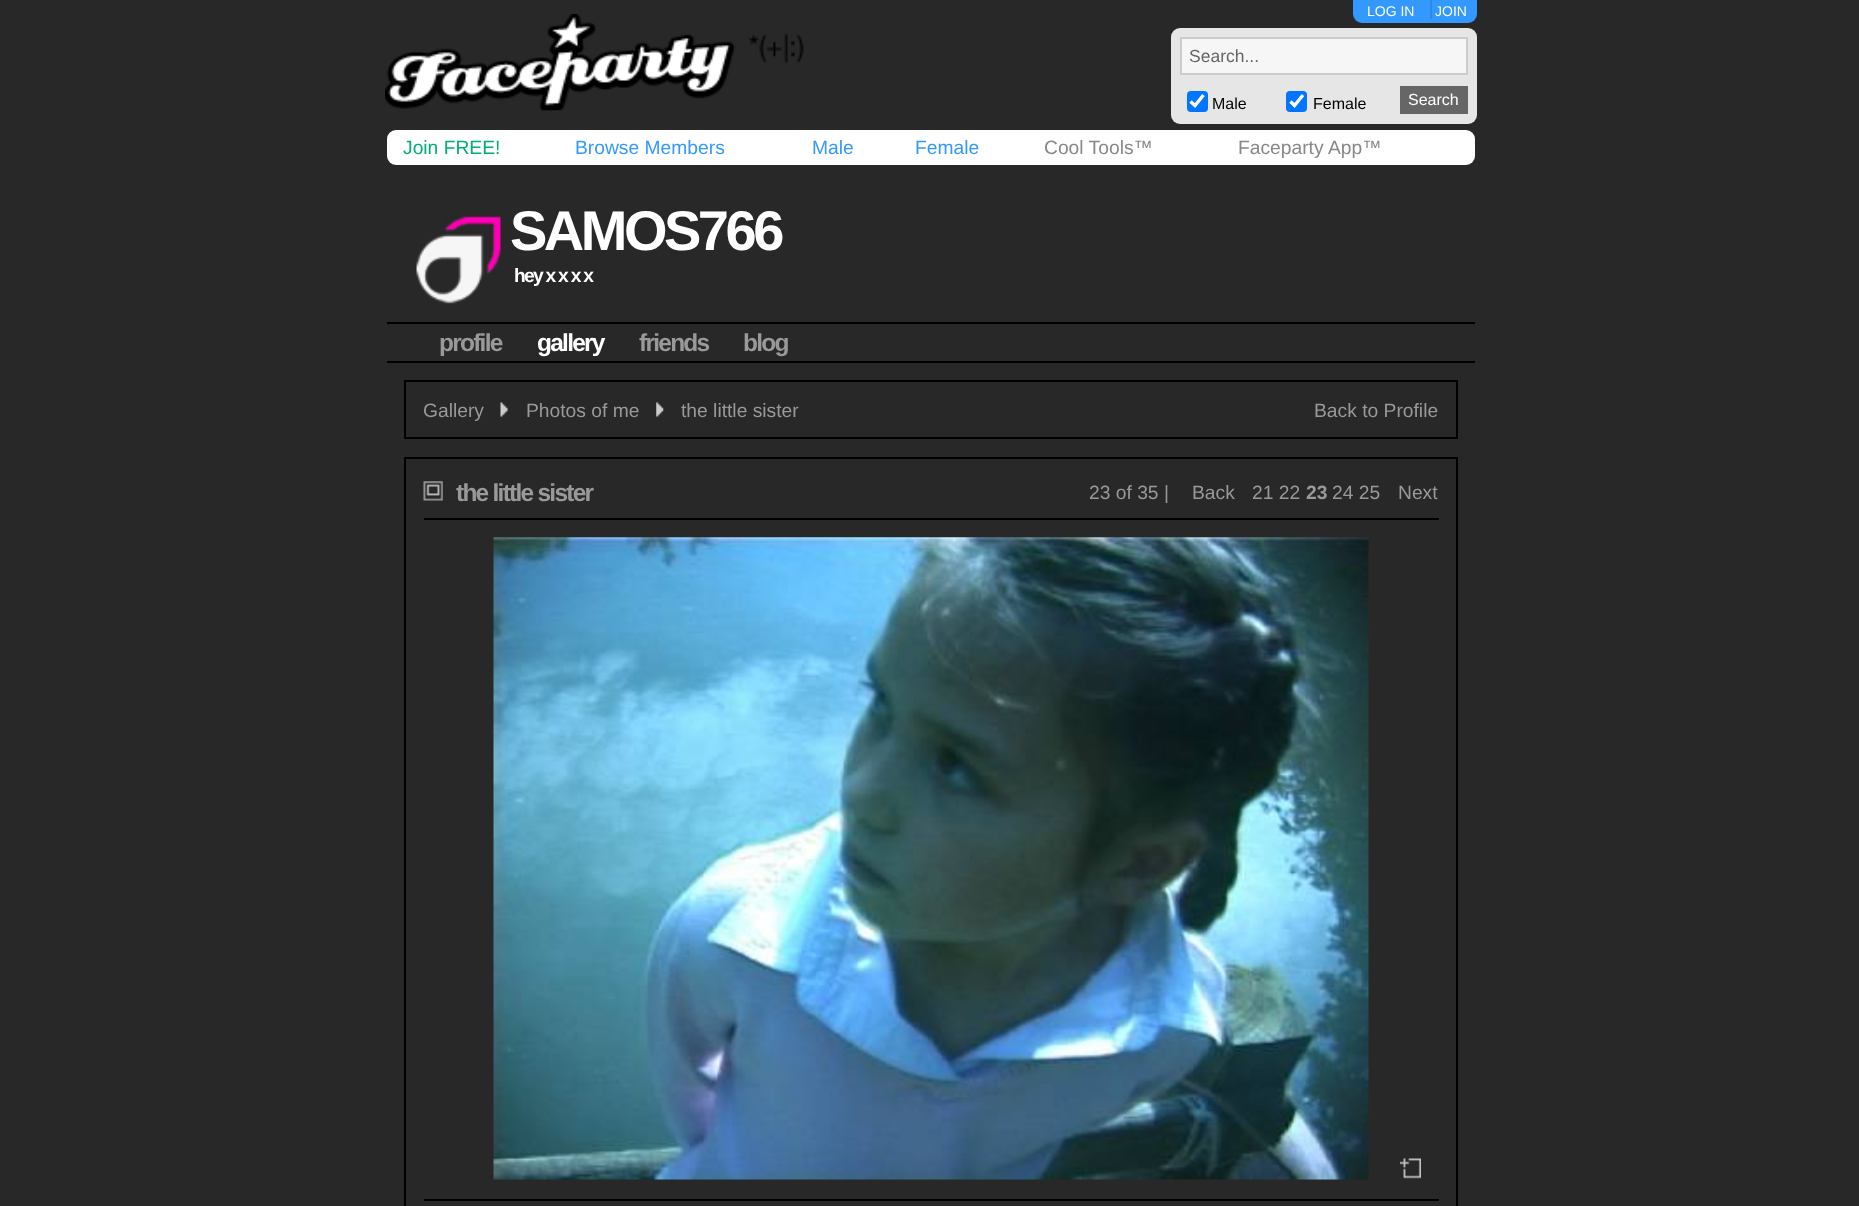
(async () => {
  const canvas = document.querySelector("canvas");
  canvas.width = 1859;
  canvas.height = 1206;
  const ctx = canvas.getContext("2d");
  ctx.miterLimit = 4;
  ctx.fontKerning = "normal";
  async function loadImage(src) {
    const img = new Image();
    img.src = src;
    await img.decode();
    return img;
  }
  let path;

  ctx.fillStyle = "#282828";
  ctx.fillRect(0, 0, 1859, 1206);
  ctx.drawImage(await loadImage("img/1.png"), 385, 14, 419, 97);
  ctx.fillStyle = "#3399ff";
  ctx.beginPath();
  ctx.roundRect(1353, 0, 124, 23, [0, 0, 9, 9]);
  ctx.fill();
  ctx.fillStyle = "#2e89e5";
  ctx.fillRect(1430, 0, 2, 19);
  ctx.fillStyle = "#e6e6e6";
  ctx.beginPath();
  ctx.roundRect(1171, 28, 306, 96, 9);
  ctx.fill();
  ctx.fillStyle = "#f6f6f6";
  ctx.beginPath();
  ctx.rect(1181, 38, 286, 36);
  ctx.fill();
  ctx.strokeStyle = "#cccccc";
  ctx.lineWidth = 2;
  ctx.stroke();
  ctx.fillStyle = "#0075ff";
  ctx.beginPath();
  ctx.roundRect(1187, 91, 21, 21, 4);
  ctx.fill();
  path = new Path2D("M1190.5 101.5L1195 105.5L1203.5 95");
  ctx.strokeStyle = "#ffffff";
  ctx.lineWidth = 3.4;
  ctx.stroke(path);
  ctx.beginPath();
  ctx.roundRect(1286, 91, 21, 21, 4);
  ctx.fill();
  path = new Path2D("M1290.5 101.5L1294.5 105.5L1303 95");
  ctx.stroke(path);
  ctx.fillStyle = "#666666";
  ctx.fillRect(1400, 86, 68, 28);
  ctx.fillStyle = "#ffffff";
  ctx.beginPath();
  ctx.roundRect(387, 130, 1088, 35, 9);
  ctx.fill();
  ctx.drawImage(await loadImage("img/2.png"), 416, 216, 85, 88);
  ctx.fillStyle = "#000000";
  ctx.fillRect(387, 322, 1088, 2);
  ctx.fillRect(387, 361, 1088, 2);
  ctx.strokeStyle = "#000000";
  ctx.lineWidth = 2;
  ctx.strokeRect(405, 381, 1052, 57);
  ctx.drawImage(await loadImage("img/3.png"), 500, 402, 8, 15);
  ctx.drawImage(await loadImage("img/4.png"), 656, 402, 8, 15);
  ctx.strokeRect(405, 458, 1052, 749);
  ctx.drawImage(await loadImage("img/5.png"), 423, 481, 20, 20);
  ctx.fillRect(424, 518, 1015, 2);
  ctx.drawImage(await loadImage("img/6.png"), 493, 537, 876, 643);
  ctx.drawImage(await loadImage("img/7.png"), 1400, 1158, 21, 21);
  ctx.fillRect(424, 1199, 1015, 2);
  ctx.font = "14px Liberation Sans";
  ctx.fillStyle = "#ffffff";
  ctx.fillText("LOG IN", 1367, 16);
  ctx.fillText("JOIN", 1435, 16);
  ctx.font = "17.5px Liberation Sans";
  ctx.fillStyle = "#666666";
  ctx.fillText("Search...", 1189, 62);
  ctx.font = "16px Liberation Sans";
  ctx.fillStyle = "#000000";
  ctx.fillText("Male", 1212, 109);
  ctx.fillText("Female", 1313, 109);
  ctx.fillStyle = "#ffffff";
  ctx.fillText("Search", 1408, 105);
  ctx.font = "19.25px Liberation Sans";
  ctx.fillStyle = "#00b070";
  ctx.fillText("Join FREE!", 403, 154);
  ctx.fillStyle = "#3399ff";
  for (const [text, x, y] of [
    ["Browse Members", 575, 154],
    ["Male", 812, 154],
    ["Female", 915, 154],
  ]) {
    ctx.fillText(text, x, y);
  }
  ctx.fillStyle = "#888888";
  ctx.fillText("Cool Tools™", 1044, 154);
  ctx.fillText("Faceparty App™", 1238, 154);
  ctx.letterSpacing = "-3.5px";
  ctx.font = "bold 56px Liberation Sans";
  ctx.fillStyle = "#ffffff";
  ctx.fillText("SAMOS766", 510, 250);
  ctx.letterSpacing = "-1.75px";
  ctx.font = "bold 19.25px Liberation Sans";
  ctx.fillText("hey x x x x", 514, 282);
  ctx.font = "bold 24.5px Liberation Sans";
  ctx.fillStyle = "#999999";
  ctx.fillText("profile", 439, 351);
  ctx.fillStyle = "#ffffff";
  ctx.fillText("gallery", 537, 351);
  ctx.fillStyle = "#999999";
  ctx.fillText("friends", 639, 351);
  ctx.fillText("blog", 743, 351);
  ctx.letterSpacing = "0px";
  ctx.font = "19.25px Liberation Sans";
  for (const [text, x, y] of [
    ["Gallery", 423, 417],
    ["Photos of me", 526, 417],
    ["the little sister", 681, 417],
    ["Back to Profile", 1314, 417],
  ]) {
    ctx.fillText(text, x, y);
  }
  ctx.letterSpacing = "-1.75px";
  ctx.font = "bold 24.5px Liberation Sans";
  ctx.fillText("the little sister", 456, 501);
  ctx.letterSpacing = "0px";
  ctx.font = "19.25px Liberation Sans";
  for (const [text, x, y] of [
    ["23 of 35 |", 1089, 499],
    ["Back", 1192, 499],
    ["21 22", 1252, 499],
  ]) {
    ctx.fillText(text, x, y);
  }
  ctx.font = "bold 19.25px Liberation Sans";
  ctx.fillText("23", 1306, 499);
  ctx.font = "19.25px Liberation Sans";
  ctx.fillText("24 25", 1332, 499);
  ctx.fillText("Next", 1398, 499);
})();
